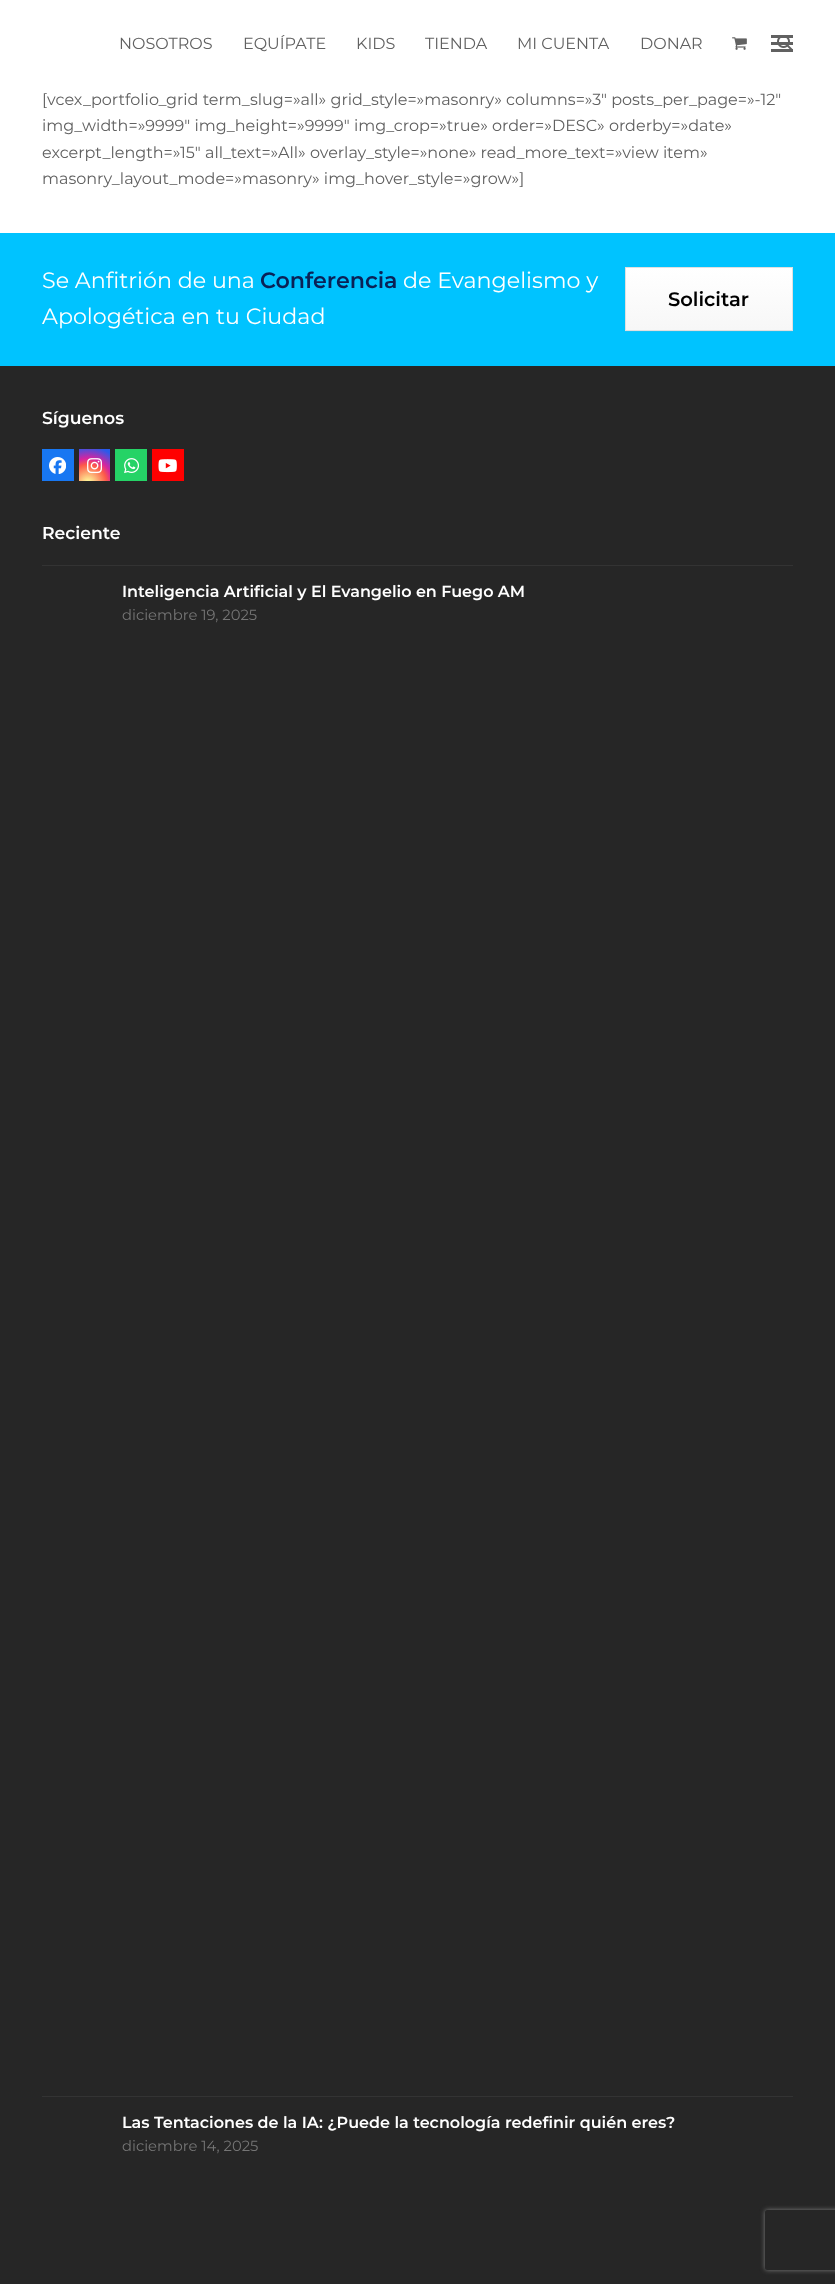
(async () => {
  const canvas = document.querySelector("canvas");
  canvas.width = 835;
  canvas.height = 2284;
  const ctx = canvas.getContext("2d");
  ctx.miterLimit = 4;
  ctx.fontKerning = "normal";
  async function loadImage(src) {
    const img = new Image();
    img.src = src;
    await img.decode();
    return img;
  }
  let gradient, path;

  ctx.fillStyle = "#ffffff";
  ctx.fillRect(0, 0, 835, 2284);
  ctx.drawImage(await loadImage("img/1.png"), 732, 37, 15, 13);
  ctx.drawImage(await loadImage("img/2.png"), 777, 38, 16, 11);
  for (const [x, y, w, h, color] of [
    [771, 42, 22, 3, "#616161"],
    [771, 35, 22, 3, "#616161"],
    [771, 49, 22, 3, "#616161"],
    [0, 233, 835, 133, "#00c3ff"],
  ]) {
    ctx.fillStyle = color;
    ctx.fillRect(x, y, w, h);
  }
  ctx.fillStyle = "rgba(180, 180, 180, 0.13)";
  ctx.filter = "blur(0.5px)";
  ctx.beginPath();
  ctx.rect(625, 268, 168, 64);
  ctx.fill();
  ctx.filter = "none";
  gradient = ctx.createLinearGradient(709, 330, 709, 268);
  gradient.addColorStop(0, "#f7f7f7");
  gradient.addColorStop(1, "#ffffff");
  ctx.fillStyle = gradient;
  ctx.fillRect(626, 268, 166, 62);
  ctx.strokeStyle = "#e0e0e0";
  ctx.strokeRect(625.5, 267.5, 167, 63);
  ctx.fillStyle = "#262626";
  ctx.fillRect(0, 366, 835, 1918);
  ctx.fillStyle = "#1877f2";
  ctx.fillRect(42, 449, 32, 32);
  ctx.drawImage(await loadImage("img/3.png"), 49, 457, 17, 17);
  gradient = ctx.createRadialGradient(88, 483, 0, 88, 483, 41);
  gradient.addColorStop(0, "#fdf497");
  gradient.addColorStop(0.05, "#fdf497");
  gradient.addColorStop(0.45, "#fd5949");
  gradient.addColorStop(0.6, "#d6249f");
  gradient.addColorStop(0.9, "#285aeb");
  ctx.fillStyle = gradient;
  ctx.fillRect(79, 449, 31, 32);
  ctx.drawImage(await loadImage("img/4.png"), 87, 458, 15, 16);
  ctx.fillStyle = "#25d366";
  ctx.fillRect(115, 449, 32, 32);
  ctx.drawImage(await loadImage("img/5.png"), 124, 458, 15, 16);
  ctx.fillStyle = "#ff0000";
  ctx.fillRect(152, 449, 32, 32);
  ctx.drawImage(await loadImage("img/6.png"), 158, 459, 19, 14);
  ctx.fillStyle = "#333333";
  ctx.fillRect(42, 565, 751, 1);
  ctx.fillRect(42, 2096, 751, 1);
  ctx.save();
  path = new Path2D("M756 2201H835V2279H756ZM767 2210H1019C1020 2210 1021 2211 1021 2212V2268C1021 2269 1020 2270 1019 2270H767C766 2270 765 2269 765 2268V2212C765 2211 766 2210 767 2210Z");
  ctx.clip(path, "evenodd");
  ctx.fillStyle = "#808080";
  ctx.filter = "blur(2.5px)";
  ctx.beginPath();
  ctx.roundRect(765, 2210, 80, 60, 2);
  ctx.fill();
  ctx.filter = "none";
  ctx.restore();
  ctx.font = "16px Montserrat";
  ctx.fillStyle = "#616161";
  for (const [text, x, y] of [
    ["NOSOTROS", 119, 49],
    ["EQUÍPATE", 243, 49],
    ["KIDS", 356, 49],
    ["TIENDA", 425, 49],
    ["MI CUENTA", 517, 49],
    ["DONAR", 640, 49],
    ["[vcex_portfolio_grid term_slug=»all» grid_style=»masonry» columns=»3″ posts_per_page=»-12″", 42, 105],
    ["img_width=»9999″ img_height=»9999″ img_crop=»true» order=»DESC» orderby=»date»", 42, 131],
    ["excerpt_length=»15″ all_text=»All» overlay_style=»none» read_more_text=»view item»", 42, 158],
    ["masonry_layout_mode=»masonry» img_hover_style=»grow»]", 42, 184],
  ]) {
    ctx.fillText(text, x, y);
  }
  ctx.font = "22.2px Montserrat";
  ctx.fillStyle = "#ffffff";
  ctx.fillText("Se Anfitrión de una", 42, 288);
  ctx.font = "600 22.2px Montserrat";
  ctx.fillStyle = "#0a2156";
  ctx.fillText("Conferencia", 260, 288);
  ctx.font = "22.2px Montserrat";
  ctx.fillStyle = "#ffffff";
  ctx.fillText("de Evangelismo y", 403, 288);
  ctx.fillText("Apologética en tu Ciudad", 42, 324);
  ctx.font = "600 19.5px Montserrat";
  ctx.fillStyle = "#000000";
  ctx.fillText("Solicitar", 668, 306);
  ctx.font = "600 17.25px Montserrat";
  ctx.fillStyle = "#ffffff";
  ctx.fillText("Síguenos", 42, 424);
  ctx.fillText("Reciente", 42, 539);
  ctx.font = "600 16px Montserrat";
  ctx.fillText("Inteligencia Artificial y El Evangelio en Fuego AM", 122, 597);
  ctx.font = "14.75px Montserrat";
  ctx.fillStyle = "#757575";
  ctx.fillText("diciembre 19, 2025", 122, 620);
  ctx.font = "600 16px Montserrat";
  ctx.fillStyle = "#ffffff";
  ctx.fillText("Las Tentaciones de la IA: ¿Puede la tecnología redefinir quién eres?", 122, 2128);
  ctx.font = "14.75px Montserrat";
  ctx.fillStyle = "#757575";
  ctx.fillText("diciembre 14, 2025", 122, 2151);
})();
